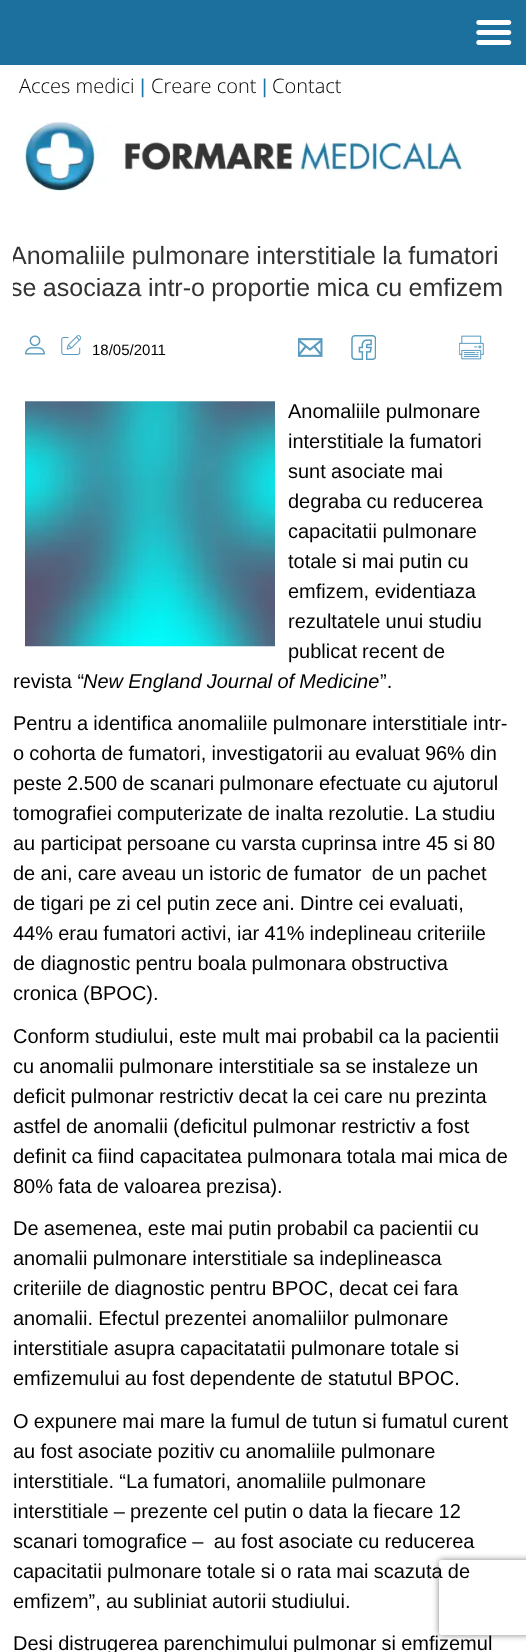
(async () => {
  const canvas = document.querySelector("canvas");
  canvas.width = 526;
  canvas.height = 1652;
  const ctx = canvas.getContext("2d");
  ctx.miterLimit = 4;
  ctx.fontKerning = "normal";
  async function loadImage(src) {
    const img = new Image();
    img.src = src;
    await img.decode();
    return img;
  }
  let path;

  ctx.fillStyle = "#ffffff";
  ctx.fillRect(0, 0, 526, 1652);
  ctx.fillStyle = "#1b709d";
  ctx.fillRect(0, 0, 526, 65);
  ctx.drawImage(await loadImage("img/1.png"), 476, 20, 36, 25);
  ctx.drawImage(await loadImage("img/2.png"), 23, 121, 444, 71);
  ctx.drawImage(await loadImage("img/3.png"), 25, 335, 20, 20);
  ctx.drawImage(await loadImage("img/4.png"), 61, 335, 20, 20);
  ctx.drawImage(await loadImage("img/5.png"), 298, 338, 25, 19);
  ctx.drawImage(await loadImage("img/6.png"), 351, 335, 25, 25);
  ctx.drawImage(await loadImage("img/7.png"), 459, 335, 25, 25);
  ctx.drawImage(await loadImage("img/8.png"), 25, 401, 250, 246);
  ctx.save();
  path = new Path2D("M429 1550H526V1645H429ZM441.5 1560H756.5C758 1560 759 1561 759 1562.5V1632.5C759 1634 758 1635 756.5 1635H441.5C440 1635 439 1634 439 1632.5V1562.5C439 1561 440 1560 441.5 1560Z");
  ctx.clip(path, "evenodd");
  ctx.fillStyle = "#808080";
  ctx.filter = "blur(3px)";
  ctx.beginPath();
  ctx.roundRect(439, 1560, 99, 75, 2.5);
  ctx.fill();
  ctx.filter = "none";
  ctx.restore();
  ctx.font = "300 20px Open Sans";
  ctx.fillStyle = "#000000";
  ctx.fillText("Acces medici", 19, 93);
  ctx.font = "20px Liberation Sans";
  ctx.fillStyle = "#1975a6";
  ctx.fillText("|", 140, 93);
  ctx.font = "300 20px Open Sans";
  ctx.fillStyle = "#000000";
  ctx.fillText("Creare cont", 151, 93);
  ctx.font = "20px Liberation Sans";
  ctx.fillStyle = "#1975a6";
  ctx.fillText("|", 262, 93);
  ctx.font = "300 20px Open Sans";
  ctx.fillStyle = "#000000";
  ctx.fillText("Contact", 272, 93);
  ctx.save();
  ctx.beginPath();
  ctx.rect(13, 220, 513, 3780);
  ctx.clip();
  ctx.wordSpacing = "-0.5px";
  ctx.font = "25px Liberation Sans";
  ctx.fillStyle = "#333333";
  ctx.fillText("Anomaliile pulmonare interstitiale la fumatori", 10, 264);
  ctx.fillText("se asociaza intr-o proportie mica cu emfizem", 10, 296);
  ctx.restore();
  ctx.font = "15px Liberation Sans";
  ctx.fillText("18/05/2011", 92, 355);
  ctx.font = "20px Liberation Sans";
  ctx.fillText("Anomaliile pulmonare", 288, 418);
  ctx.wordSpacing = "-0.4px";
  for (const [text, x, y] of [
    ["interstitiale la fumatori", 288, 448],
    ["sunt asociate mai", 288, 478],
    ["degraba cu reducerea", 288, 508],
  ]) {
    ctx.fillText(text, x, y);
  }
  ctx.wordSpacing = "0px";
  ctx.fillText("capacitatii pulmonare", 288, 538);
  ctx.wordSpacing = "-0.4px";
  ctx.fillText("totale si mai putin cu", 288, 568);
  ctx.wordSpacing = "0px";
  ctx.fillText("emfizem, evidentiaza", 288, 598);
  ctx.wordSpacing = "-0.4px";
  ctx.fillText("rezultatele unui studiu", 288, 628);
  ctx.fillText("publicat recent de", 288, 658);
  ctx.wordSpacing = "0px";
  ctx.fillText("revista “", 13, 688);
  ctx.wordSpacing = "-0.4px";
  ctx.font = "italic 20px Liberation Sans";
  ctx.fillText("New England Journal of Medicine", 83, 688);
  ctx.wordSpacing = "0px";
  ctx.font = "20px Liberation Sans";
  ctx.fillText("”.", 380, 688);
  ctx.wordSpacing = "-0.4px";
  for (const [text, x, y] of [
    ["Pentru a identifica anomaliile pulmonare interstitiale intr-", 13, 730],
    ["o cohorta de fumatori, investigatorii au evaluat 96% din", 13, 760],
    ["peste 2.500 de scanari pulmonare efectuate cu ajutorul", 13, 790],
    ["tomografiei computerizate de inalta rezolutie. La studiu", 13, 820],
    ["au participat persoane cu varsta cuprinsa intre 45 si 80", 13, 850],
    ["de ani, care aveau un istoric de fumator  de un pachet", 13, 880],
    ["de tigari pe zi cel putin zece ani. Dintre cei evaluati,", 13, 910],
    ["44% erau fumatori activi, iar 41% indeplineau criteriile", 13, 940],
    ["de diagnostic pentru boala pulmonara obstructiva", 13, 970],
  ]) {
    ctx.fillText(text, x, y);
  }
  ctx.wordSpacing = "0px";
  ctx.fillText("cronica (BPOC).", 13, 1000);
  ctx.wordSpacing = "-0.4px";
  for (const [text, x, y] of [
    ["Conform studiului, este mult mai probabil ca la pacientii", 13, 1043],
    ["cu anomalii pulmonare interstitiale sa se instaleze un", 13, 1073],
    ["deficit pulmonar restrictiv decat la cei care nu prezinta", 13, 1103],
    ["astfel de anomalii (deficitul pulmonar restrictiv a fost", 13, 1133],
    ["definit ca fiind capacitatea pulmonara totala mai mica de", 13, 1163],
    ["80% fata de valoarea prezisa).", 13, 1193],
    ["De asemenea, este mai putin probabil ca pacientii cu", 13, 1235],
    ["anomalii pulmonare interstitiale sa indeplineasca", 13, 1265],
    ["criteriile de diagnostic pentru BPOC, decat cei fara", 13, 1295],
    ["anomalii. Efectul prezentei anomaliilor pulmonare", 13, 1325],
    ["interstitiale asupra capacitatatii pulmonare totale si", 13, 1355],
    ["emfizemului au fost dependente de statutul BPOC.", 13, 1385],
    ["O expunere mai mare la fumul de tutun si fumatul curent", 13, 1428],
    ["au fost asociate pozitiv cu anomaliile pulmonare", 13, 1458],
    ["interstitiale. “La fumatori, anomaliile pulmonare", 13, 1488],
    ["interstitiale – prezente cel putin o data la fiecare 12", 13, 1518],
    ["scanari tomografice –  au fost asociate cu reducerea", 13, 1548],
    ["capacitatii pulmonare totale si o rata mai scazuta de", 13, 1578],
    ["emfizem”, au subliniat autorii studiului.", 13, 1608],
    ["Desi distrugerea parenchimului pulmonar si emfizemul", 13, 1650],
  ]) {
    ctx.fillText(text, x, y);
  }
})();
